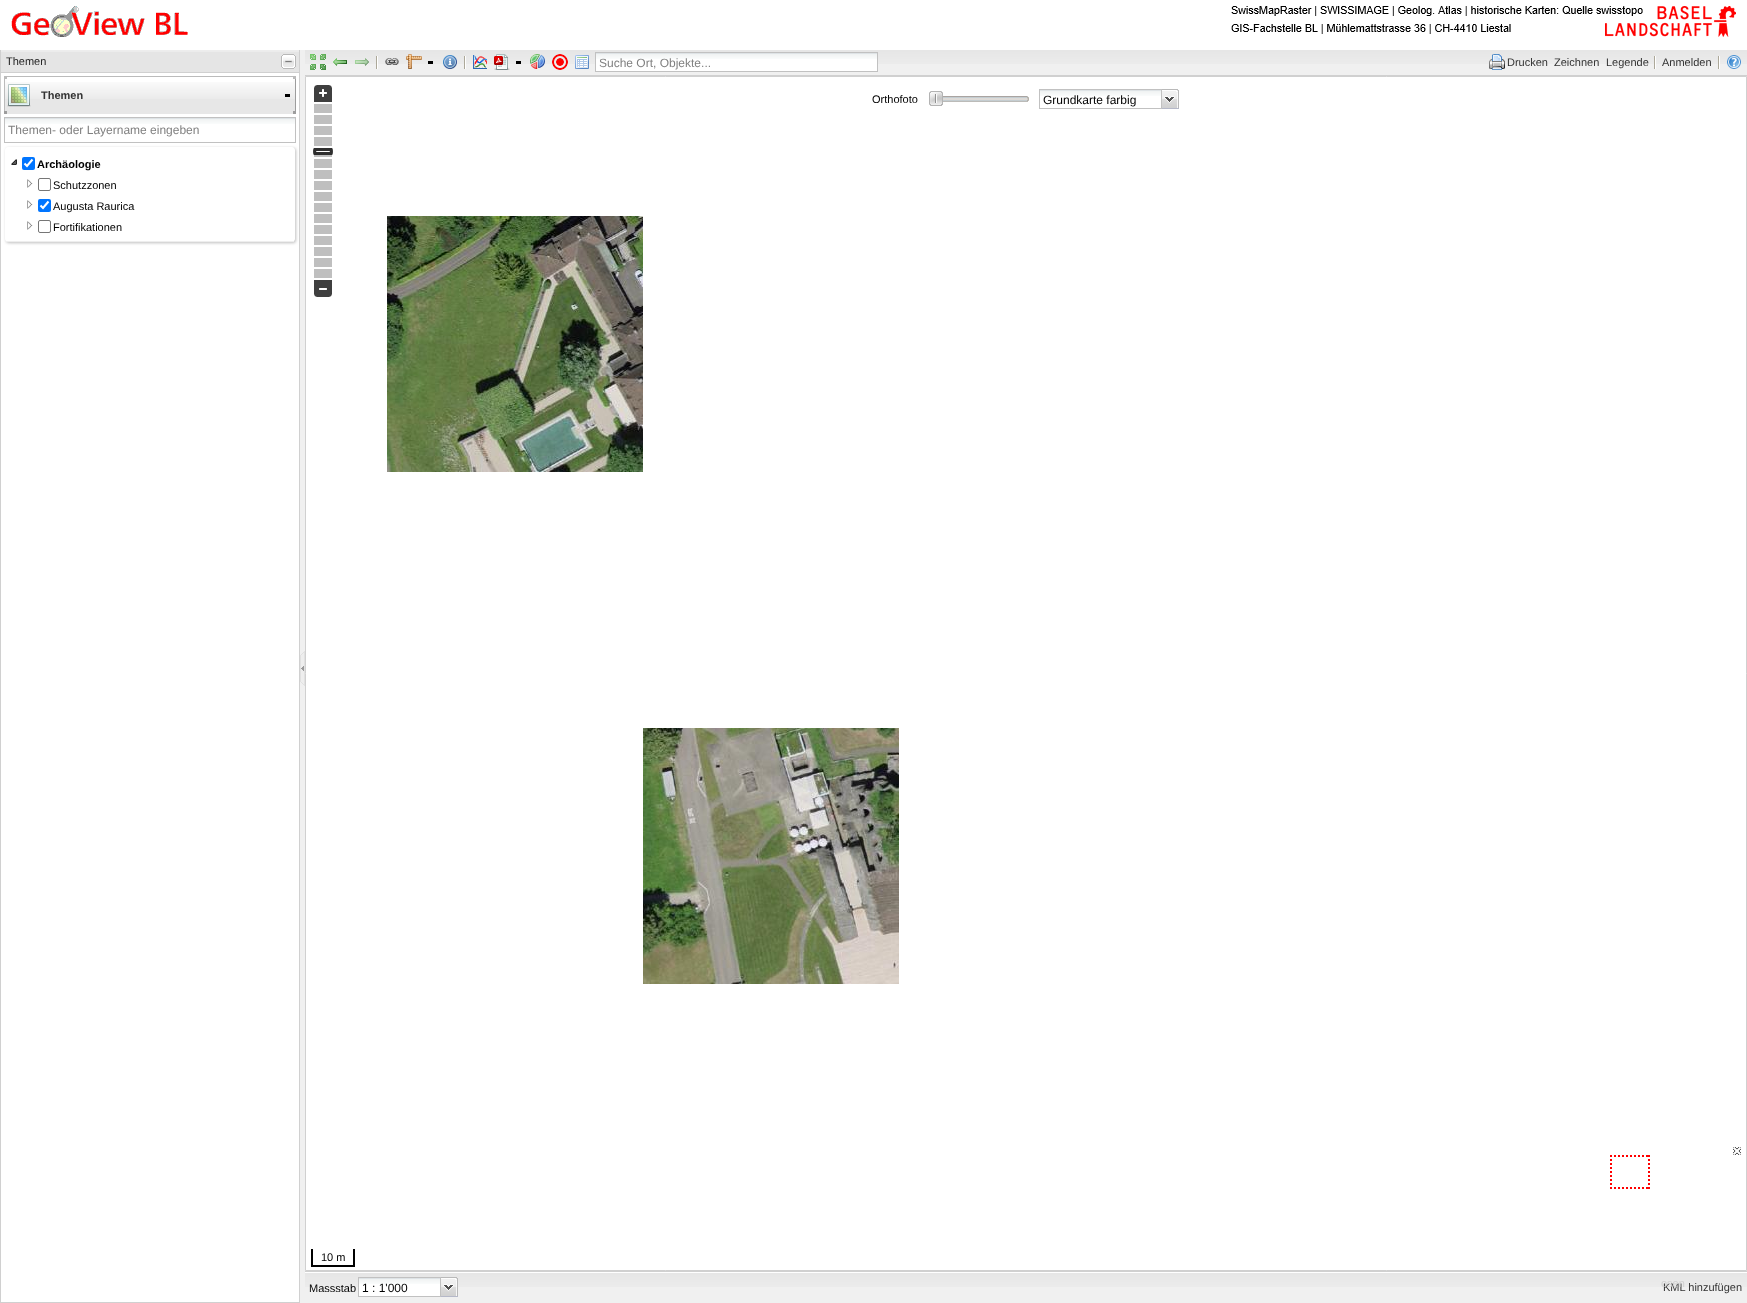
(async () => {
  const canvas = document.querySelector("canvas");
  canvas.width = 1747;
  canvas.height = 1303;
  const ctx = canvas.getContext("2d");
  ctx.miterLimit = 4;
  ctx.fontKerning = "normal";
  async function loadImage(src) {
    const img = new Image();
    img.src = src;
    await img.decode();
    return img;
  }
  let path;

  ctx.fillStyle = "#f0f0f0";
  ctx.fillRect(0, 0, 1747, 1303);
  ctx.fillStyle = "#ffffff";
  ctx.fillRect(0, 0, 1747, 50);
  ctx.drawImage(await loadImage("img/1.png"), 1231, 6, 505, 31);
  ctx.drawImage(await loadImage("img/2.png"), 11, 6, 177, 31);
  ctx.fillRect(1, 73, 298, 1229);
  ctx.drawImage(await loadImage("img/3.png"), 1, 50, 298, 22);
  for (const [x, y, w, h, color] of [
    [299, 50, 1, 1253, "#d0d0d0"],
    [0, 72, 300, 1, "#d0d0d0"],
    [0, 50, 1, 23, "#d0d0d0"],
  ]) {
    ctx.fillStyle = color;
    ctx.fillRect(x, y, w, h);
  }
  ctx.drawImage(await loadImage("img/4.png"), 281, 54, 15, 15);
  for (const [x, y, w, h, color] of [
    [0, 1302, 300, 1, "#d0d0d0"],
    [0, 73, 1, 1230, "#d0d0d0"],
    [4, 76, 3, 3, "#bbbbbb"],
    [7, 76, 286, 1, "#bbbbbb"],
    [293, 76, 3, 3, "#bbbbbb"],
  ]) {
    ctx.fillStyle = color;
    ctx.fillRect(x, y, w, h);
  }
  ctx.drawImage(await loadImage("img/5.png"), 4, 79, 3, 32);
  ctx.drawImage(await loadImage("img/6.png"), 7, 82, 286, 29);
  ctx.fillStyle = "#000000";
  ctx.fillRect(285, 94, 5, 3);
  ctx.drawImage(await loadImage("img/7.png"), 7, 84, 24, 23);
  ctx.drawImage(await loadImage("img/8.png"), 293, 79, 3, 32);
  for (const [x, y, w, h, color] of [
    [4, 111, 3, 3, "#9d9d9d"],
    [7, 111, 286, 3, "#e7e7e7"],
    [293, 111, 3, 3, "#9d9d9d"],
  ]) {
    ctx.fillStyle = color;
    ctx.fillRect(x, y, w, h);
  }
  ctx.drawImage(await loadImage("img/9.png"), 5, 118, 290, 6);
  ctx.strokeStyle = "#c1c1c1";
  ctx.strokeRect(4.5, 117.5, 291, 25);
  ctx.save();
  path = new Path2D("M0 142H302V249H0ZM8 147H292C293.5 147 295 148.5 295 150V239C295 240.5 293.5 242 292 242H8C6.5 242 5 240.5 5 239V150C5 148.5 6.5 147 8 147Z");
  ctx.clip(path, "evenodd");
  ctx.fillStyle = "rgba(0, 0, 0, 0.25)";
  ctx.filter = "blur(1.5px)";
  ctx.beginPath();
  ctx.roundRect(6, 148, 290, 95, 3);
  ctx.fill();
  ctx.filter = "none";
  ctx.restore();
  ctx.fillStyle = "#eeeeee";
  ctx.fillRect(7, 241, 287, 1);
  ctx.drawImage(await loadImage("img/10.png"), 11, 159, 6, 6);
  ctx.fillStyle = "#0075ff";
  ctx.beginPath();
  ctx.roundRect(22, 157, 13, 13, 2);
  ctx.fill();
  path = new Path2D("M24.5 163.5L27 166L32.5 159.5");
  ctx.strokeStyle = "#ffffff";
  ctx.lineWidth = 2.1;
  ctx.stroke(path);
  ctx.drawImage(await loadImage("img/11.png"), 27, 179, 6, 9);
  ctx.beginPath();
  ctx.roundRect(38.5, 178.5, 12, 12, 1.5);
  ctx.strokeStyle = "#767676";
  ctx.lineWidth = 1;
  ctx.stroke();
  ctx.drawImage(await loadImage("img/11.png"), 27, 200, 6, 9);
  ctx.beginPath();
  ctx.roundRect(38, 199, 13, 13, 2);
  ctx.fill();
  path = new Path2D("M40.5 205.5L43 208L48.5 201.5");
  ctx.strokeStyle = "#ffffff";
  ctx.lineWidth = 2.1;
  ctx.stroke(path);
  ctx.drawImage(await loadImage("img/11.png"), 27, 221, 6, 9);
  ctx.beginPath();
  ctx.roundRect(38.5, 220.5, 12, 12, 1.5);
  ctx.strokeStyle = "#767676";
  ctx.lineWidth = 1;
  ctx.stroke();
  ctx.drawImage(await loadImage("img/12.png"), 300, 651, 5, 35);
  ctx.drawImage(await loadImage("img/13.png"), 305, 50, 1442, 14);
  ctx.fillStyle = "#d0d0d0";
  ctx.fillRect(305, 75, 1442, 1);
  ctx.drawImage(await loadImage("img/14.png"), 310, 54, 16, 16);
  ctx.drawImage(await loadImage("img/15.png"), 333, 58, 14, 8);
  ctx.drawImage(await loadImage("img/16.png"), 355, 58, 14, 8);
  ctx.drawImage(await loadImage("img/17.png"), 376, 56, 2, 13);
  ctx.drawImage(await loadImage("img/18.png"), 385, 58, 14, 7);
  ctx.fillStyle = "#000000";
  ctx.fillRect(428, 61, 5, 3);
  ctx.drawImage(await loadImage("img/19.png"), 406, 54, 16, 15);
  ctx.drawImage(await loadImage("img/20.png"), 443, 55, 14, 14);
  ctx.drawImage(await loadImage("img/17.png"), 464, 56, 2, 13);
  ctx.drawImage(await loadImage("img/21.png"), 473, 55, 14, 14);
  ctx.fillRect(516, 61, 5, 3);
  ctx.drawImage(await loadImage("img/22.png"), 494, 54, 16, 16);
  ctx.drawImage(await loadImage("img/23.png"), 530, 54, 15, 15);
  ctx.drawImage(await loadImage("img/24.png"), 552, 54, 16, 16);
  ctx.drawImage(await loadImage("img/25.png"), 575, 55, 14, 14);
  ctx.fillStyle = "#ffffff";
  ctx.fillRect(596, 59, 281, 12);
  ctx.drawImage(await loadImage("img/26.png"), 596, 53, 281, 6);
  ctx.strokeStyle = "#c1c1c1";
  ctx.strokeRect(595.5, 52.5, 282, 19);
  ctx.drawImage(await loadImage("img/27.png"), 1489, 54, 16, 16);
  ctx.drawImage(await loadImage("img/17.png"), 1654, 56, 2, 13);
  ctx.drawImage(await loadImage("img/17.png"), 1718, 56, 2, 13);
  ctx.drawImage(await loadImage("img/28.png"), 1727, 55, 14, 14);
  ctx.beginPath();
  ctx.rect(305.5, 76.5, 1441, 1194);
  ctx.fill();
  ctx.strokeStyle = "#d0d0d0";
  ctx.stroke();
  ctx.drawImage(await loadImage("img/29.png"), 1022, 96, 7, 6);
  ctx.drawImage(await loadImage("img/30.png"), 943, 96, 79, 6);
  ctx.drawImage(await loadImage("img/31.png"), 929, 91, 14, 15);
  ctx.drawImage(await loadImage("img/32.png"), 1040, 90, 121, 6);
  ctx.strokeStyle = "#c1c1c1";
  ctx.strokeRect(1039.5, 89.5, 122, 19);
  ctx.drawImage(await loadImage("img/33.png"), 1162, 89, 17, 19);
  ctx.fillStyle = "#b5b8c8";
  ctx.fillRect(1162, 108, 17, 1);
  ctx.drawImage(await loadImage("img/34.png"), 314, 85, 18, 17);
  ctx.drawImage(await loadImage("img/35.png"), 314, 104, 18, 174);
  ctx.drawImage(await loadImage("img/36.png"), 313, 148, 20, 7);
  ctx.drawImage(await loadImage("img/37.png"), 314, 280, 18, 17);
  ctx.drawImage(await loadImage("img/38.png"), 387, 216, 256, 256);
  ctx.drawImage(await loadImage("img/39.png"), 643, 728, 256, 256);
  ctx.drawImage(await loadImage("img/40.png"), 1733, 1147, 8, 8);
  path = new Path2D("M1610 1156H1650M1649 1155V1189M1610 1188H1650M1611 1155V1189");
  ctx.strokeStyle = "#ff0000";
  ctx.lineWidth = 2;
  ctx.setLineDash([2, 2]);
  ctx.stroke(path);
  for (const [x, y, w, h, color] of [
    [353, 1249, 2, 18, "#000000"],
    [311, 1265, 44, 2, "#000000"],
    [311, 1249, 2, 18, "#000000"],
  ]) {
    ctx.fillStyle = color;
    ctx.fillRect(x, y, w, h);
  }
  ctx.drawImage(await loadImage("img/41.png"), 305, 1272, 1442, 15);
  ctx.fillStyle = "#d0d0d0";
  ctx.fillRect(305, 1271, 1442, 1);
  ctx.fillStyle = "#ffffff";
  ctx.fillRect(359, 1284, 81, 12);
  ctx.drawImage(await loadImage("img/42.png"), 359, 1278, 81, 6);
  ctx.strokeStyle = "#c1c1c1";
  ctx.lineWidth = 1;
  ctx.setLineDash([]);
  ctx.strokeRect(358.5, 1277.5, 82, 19);
  ctx.drawImage(await loadImage("img/43.png"), 441, 1277, 17, 19);
  ctx.fillStyle = "#b5b8c8";
  ctx.fillRect(441, 1296, 17, 1);
  ctx.font = "11px Liberation Sans";
  ctx.fillStyle = "#222222";
  ctx.fillText("Themen", 6, 65);
  ctx.font = "bold 11px Liberation Sans";
  ctx.fillStyle = "#333333";
  ctx.fillText("Themen", 41, 99);
  ctx.font = "12px Liberation Sans";
  ctx.fillStyle = "#808080";
  ctx.fillText("Themen- oder Layername eingeben", 8, 134);
  ctx.font = "bold 11px Liberation Sans";
  ctx.fillStyle = "#000000";
  ctx.fillText("Archäologie", 37, 168);
  ctx.font = "11px Liberation Sans";
  for (const [text, x, y] of [
    ["Schutzzonen", 53, 189],
    ["Augusta Raurica", 53, 210],
    ["Fortifikationen", 53, 231],
  ]) {
    ctx.fillText(text, x, y);
  }
  ctx.font = "12px Liberation Sans";
  ctx.fillStyle = "#808080";
  ctx.fillText("Suche Ort, Objekte...", 599, 67);
  ctx.font = "11px Liberation Sans";
  ctx.fillStyle = "#333333";
  for (const [text, x, y] of [
    ["Drucken", 1507, 66],
    ["Zeichnen", 1554, 66],
    ["Legende", 1606, 66],
    ["Anmelden", 1662, 66],
  ]) {
    ctx.fillText(text, x, y);
  }
  ctx.fillStyle = "#000000";
  ctx.fillText("Orthofoto", 872, 103);
  ctx.font = "12px Liberation Sans";
  ctx.fillText("Grundkarte farbig", 1043, 104);
  ctx.font = "11px Liberation Sans";
  ctx.fillText("10 m", 321, 1261);
  ctx.fillText("Massstab", 309, 1292);
  ctx.font = "12px Liberation Sans";
  ctx.fillText("1 : 1'000", 362, 1292);
  ctx.font = "11px Liberation Sans";
  ctx.fillStyle = "#333333";
  ctx.fillText("KML hinzufügen", 1663, 1291);
  ctx.fillStyle = "#d1d1d1";
  ctx.fillText("osen", 1661, 1287);
})();
